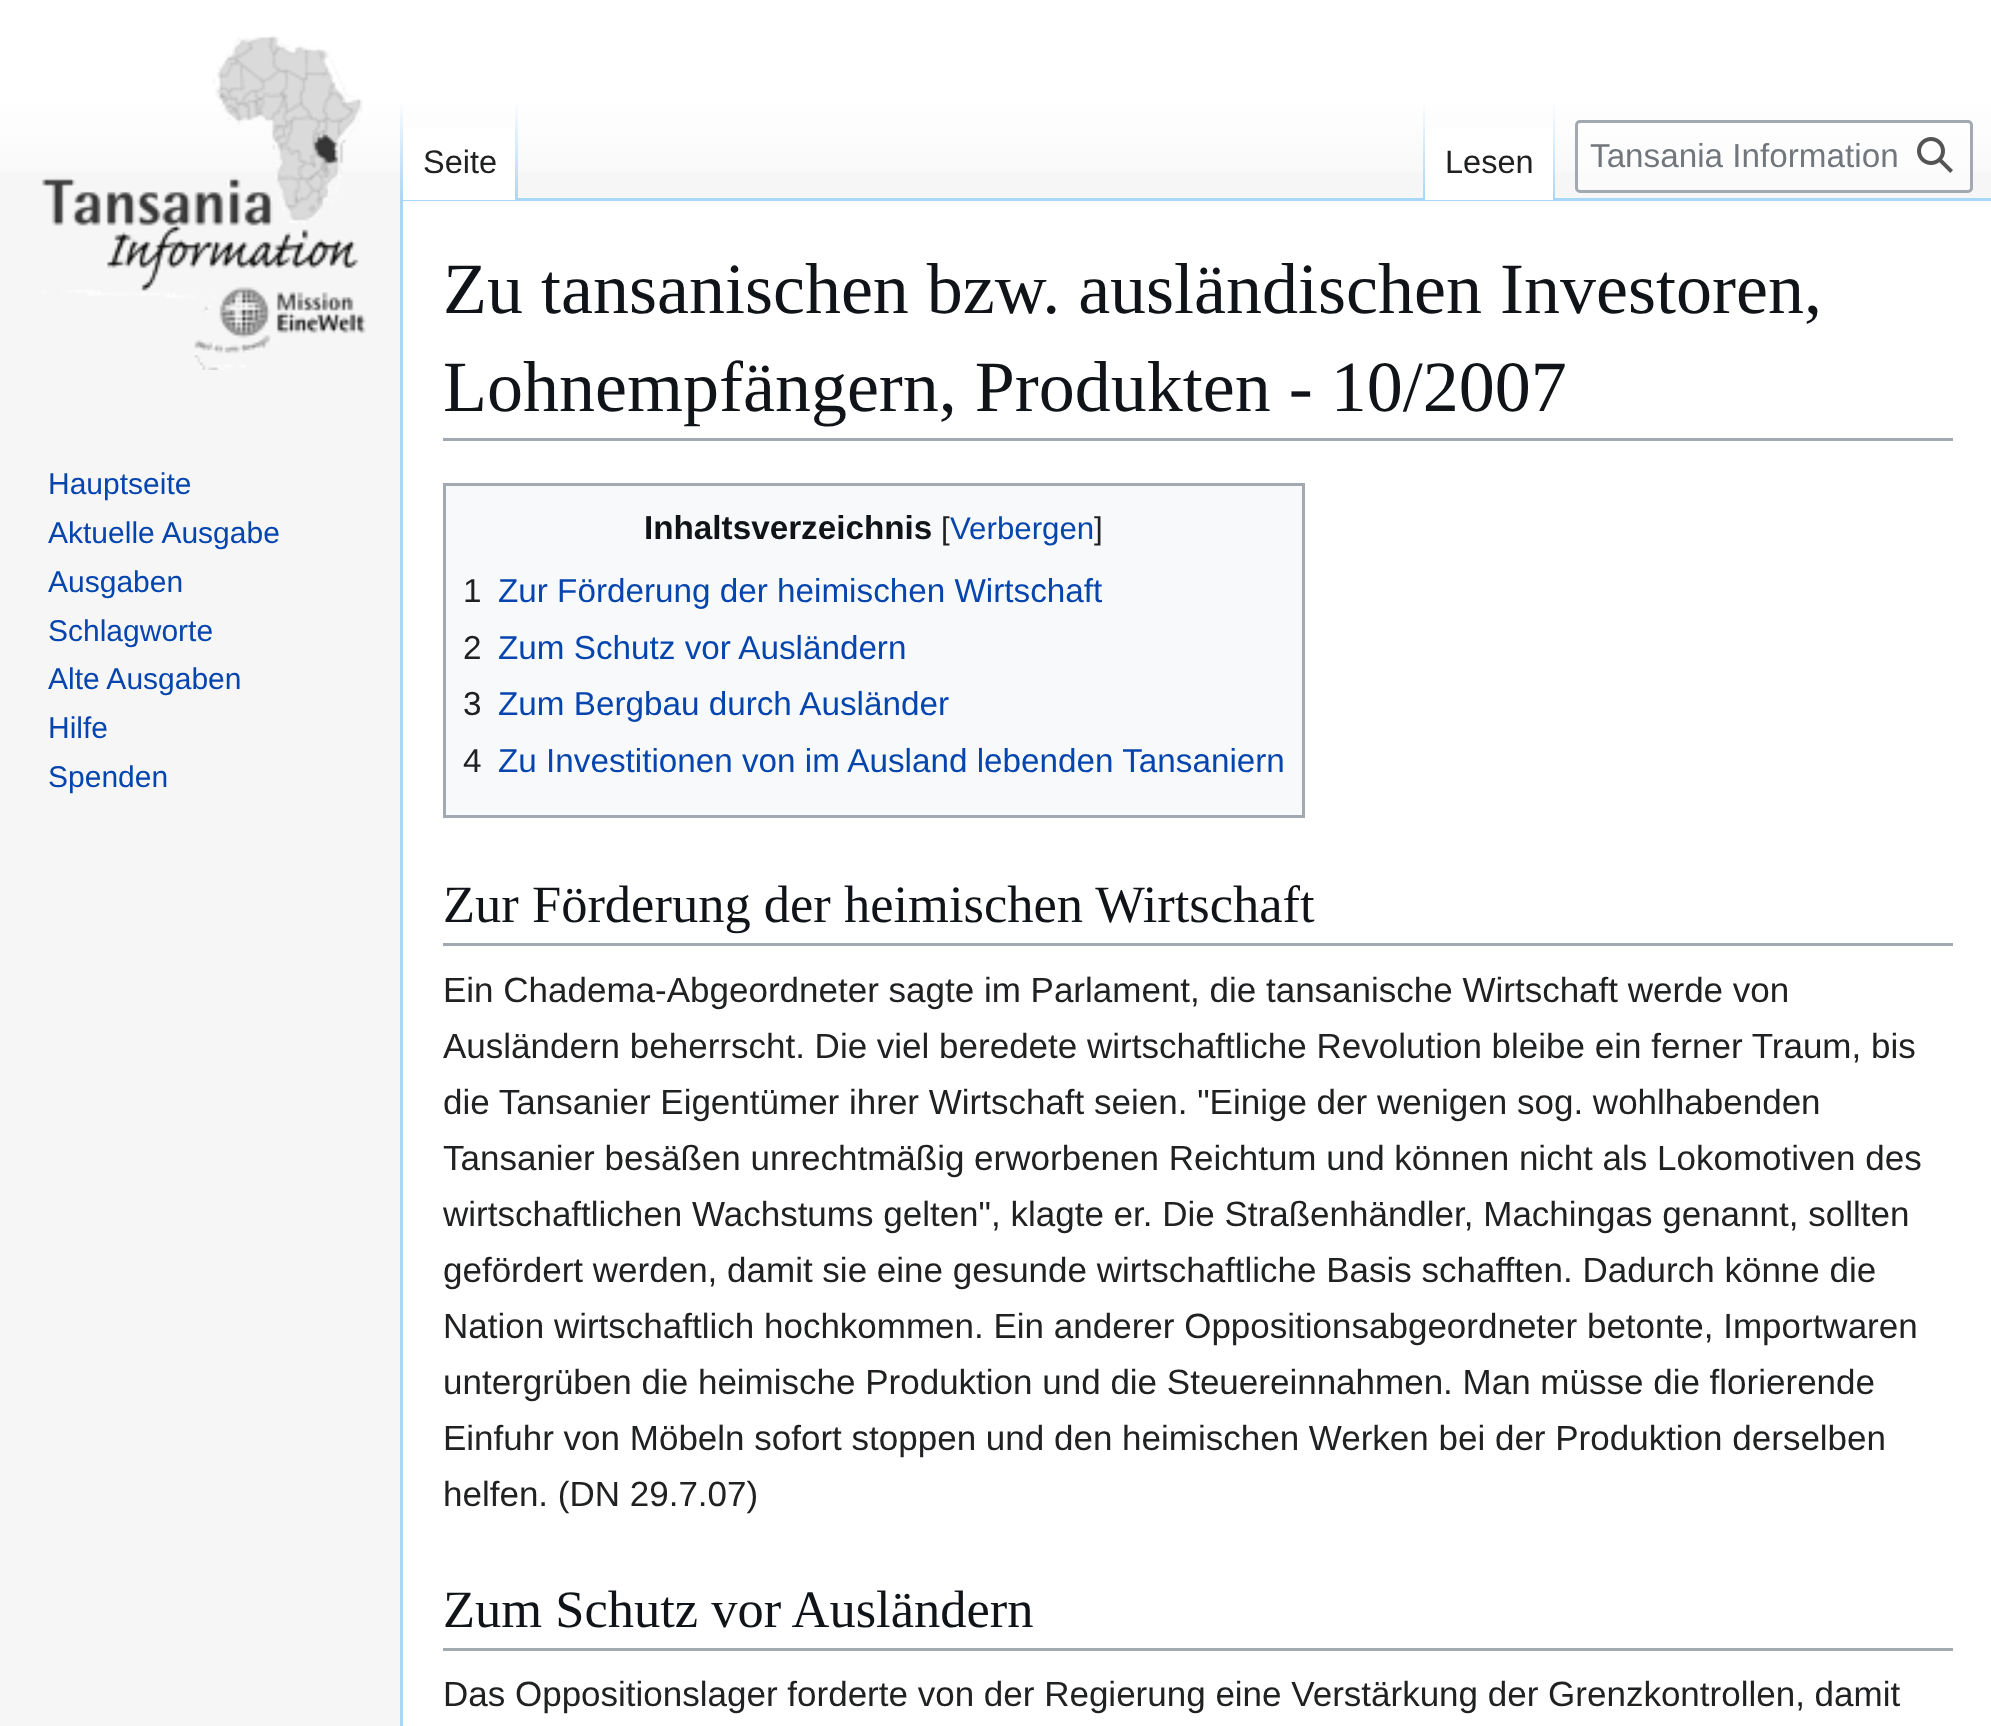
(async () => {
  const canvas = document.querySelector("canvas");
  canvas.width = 1991;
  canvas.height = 1726;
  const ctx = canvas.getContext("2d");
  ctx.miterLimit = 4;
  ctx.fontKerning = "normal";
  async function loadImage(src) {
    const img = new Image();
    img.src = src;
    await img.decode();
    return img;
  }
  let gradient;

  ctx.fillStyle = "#f6f6f6";
  ctx.fillRect(0, 0, 1991, 1726);
  gradient = ctx.createLinearGradient(996, 0, 996, 200);
  gradient.addColorStop(0.5, "#ffffff");
  gradient.addColorStop(1, "#f6f6f6");
  ctx.fillStyle = gradient;
  ctx.fillRect(0, 0, 1991, 172);
  ctx.fillStyle = "#a7d7f9";
  ctx.fillRect(400, 198, 1591, 3);
  ctx.fillRect(400, 198, 3, 1528);
  gradient = ctx.createLinearGradient(401, 100, 401, 200);
  gradient.addColorStop(0, "rgba(167, 215, 249, 0)");
  gradient.addColorStop(1, "#a7d7f9");
  ctx.fillStyle = gradient;
  ctx.fillRect(400, 100, 3, 100);
  ctx.fillStyle = "#ffffff";
  ctx.fillRect(403, 128, 112, 72);
  gradient = ctx.createLinearGradient(516, 100, 516, 200);
  gradient.addColorStop(0, "#ffffff");
  gradient.addColorStop(1, "#a7d7f9");
  ctx.fillStyle = gradient;
  ctx.fillRect(515, 100, 3, 100);
  gradient = ctx.createLinearGradient(1424, 100, 1424, 200);
  gradient.addColorStop(0, "rgba(167, 215, 249, 0)");
  gradient.addColorStop(1, "#a7d7f9");
  ctx.fillStyle = gradient;
  ctx.fillRect(1423, 100, 2, 100);
  ctx.fillStyle = "#ffffff";
  ctx.fillRect(1425, 128, 128, 72);
  gradient = ctx.createLinearGradient(1554, 100, 1554, 200);
  gradient.addColorStop(0, "#ffffff");
  gradient.addColorStop(1, "#a7d7f9");
  ctx.fillStyle = gradient;
  ctx.fillRect(1553, 100, 2, 100);
  ctx.fillStyle = "rgba(255, 255, 255, 0.5)";
  ctx.beginPath();
  ctx.roundRect(1576.5, 121.5, 395, 70, 3.5);
  ctx.fill();
  ctx.strokeStyle = "#a2a9b1";
  ctx.lineWidth = 3;
  ctx.stroke();
  ctx.drawImage(await loadImage("img/1.png"), 1917, 137, 36, 36);
  ctx.drawImage(await loadImage("img/2.png"), 41, 35, 325, 335);
  ctx.fillStyle = "#ffffff";
  ctx.fillRect(403, 201, 1588, 1525);
  ctx.fillStyle = "#a2a9b1";
  ctx.fillRect(443, 438, 1510, 3);
  ctx.fillStyle = "#f8f9fa";
  ctx.beginPath();
  ctx.rect(444.5, 484.5, 859, 332);
  ctx.fill();
  ctx.stroke();
  ctx.fillStyle = "#a2a9b1";
  ctx.fillRect(443, 943, 1510, 3);
  ctx.fillRect(443, 1648, 1510, 3);
  ctx.font = "32.5px Liberation Sans";
  ctx.fillStyle = "#202122";
  ctx.fillText("Seite", 423, 173);
  ctx.fillText("Lesen", 1445, 173);
  ctx.font = "33.25px Liberation Sans";
  ctx.fillStyle = "#72777d";
  ctx.fillText("Tansania Information", 1590, 167);
  ctx.font = "30px Liberation Sans";
  ctx.fillStyle = "#0645ad";
  for (const [text, x, y] of [
    ["Hauptseite", 48, 494],
    ["Aktuelle Ausgabe", 48, 543],
    ["Ausgaben", 48, 592],
    ["Schlagworte", 48, 641],
    ["Alte Ausgaben", 48, 689],
    ["Hilfe", 48, 738],
    ["Spenden", 48, 787],
  ]) {
    ctx.fillText(text, x, y);
  }
  ctx.font = "72px Liberation Serif";
  ctx.fillStyle = "#101418";
  ctx.fillText("Zu tansanischen bzw. ausländischen Investoren,", 443, 313);
  ctx.fillText("Lohnempfängern, Produkten - 10/2007", 443, 411);
  ctx.font = "bold 33.25px Liberation Sans";
  ctx.fillText("Inhaltsverzeichnis", 644, 539);
  ctx.font = "31.25px Liberation Sans";
  ctx.fillStyle = "#202122";
  ctx.fillText("[", 941, 539);
  ctx.fillStyle = "#0645ad";
  ctx.fillText("Verbergen", 950, 539);
  ctx.fillStyle = "#202122";
  ctx.fillText("]", 1094, 539);
  ctx.font = "33.25px Liberation Sans";
  ctx.fillText("1", 463, 602);
  ctx.fillStyle = "#0645ad";
  ctx.fillText("Zur Förderung der heimischen Wirtschaft", 498, 602);
  ctx.fillStyle = "#202122";
  ctx.fillText("2", 463, 659);
  ctx.fillStyle = "#0645ad";
  ctx.fillText("Zum Schutz vor Ausländern", 498, 659);
  ctx.fillStyle = "#202122";
  ctx.fillText("3", 463, 715);
  ctx.fillStyle = "#0645ad";
  ctx.fillText("Zum Bergbau durch Ausländer", 498, 715);
  ctx.fillStyle = "#202122";
  ctx.fillText("4", 463, 772);
  ctx.fillStyle = "#0645ad";
  ctx.fillText("Zu Investitionen von im Ausland lebenden Tansaniern", 498, 772);
  ctx.font = "52.5px Liberation Serif";
  ctx.fillStyle = "#101418";
  ctx.fillText("Zur Förderung der heimischen Wirtschaft", 443, 922);
  ctx.font = "35px Liberation Sans";
  ctx.fillStyle = "#202122";
  for (const [text, x, y] of [
    ["Ein Chadema-Abgeordneter sagte im Parlament, die tansanische Wirtschaft werde von", 443, 1002],
    ["Ausländern beherrscht. Die viel beredete wirtschaftliche Revolution bleibe ein ferner Traum, bis", 443, 1058],
    ["die Tansanier Eigentümer ihrer Wirtschaft seien. \"Einige der wenigen sog. wohlhabenden", 443, 1114],
    ["Tansanier besäßen unrechtmäßig erworbenen Reichtum und können nicht als Lokomotiven des", 443, 1170],
    ["wirtschaftlichen Wachstums gelten\", klagte er. Die Straßenhändler, Machingas genannt, sollten", 443, 1226],
    ["gefördert werden, damit sie eine gesunde wirtschaftliche Basis schafften. Dadurch könne die", 443, 1282],
    ["Nation wirtschaftlich hochkommen. Ein anderer Oppositionsabgeordneter betonte, Importwaren", 443, 1338],
    ["untergrüben die heimische Produktion und die Steuereinnahmen. Man müsse die florierende", 443, 1394],
    ["Einfuhr von Möbeln sofort stoppen und den heimischen Werken bei der Produktion derselben", 443, 1450],
    ["helfen. (DN 29.7.07)", 443, 1506],
  ]) {
    ctx.fillText(text, x, y);
  }
  ctx.font = "52.5px Liberation Serif";
  ctx.fillStyle = "#101418";
  ctx.fillText("Zum Schutz vor Ausländern", 443, 1627);
  ctx.font = "35px Liberation Sans";
  ctx.fillStyle = "#202122";
  ctx.fillText("Das Oppositionslager forderte von der Regierung eine Verstärkung der Grenzkontrollen, damit", 443, 1706);
})();
